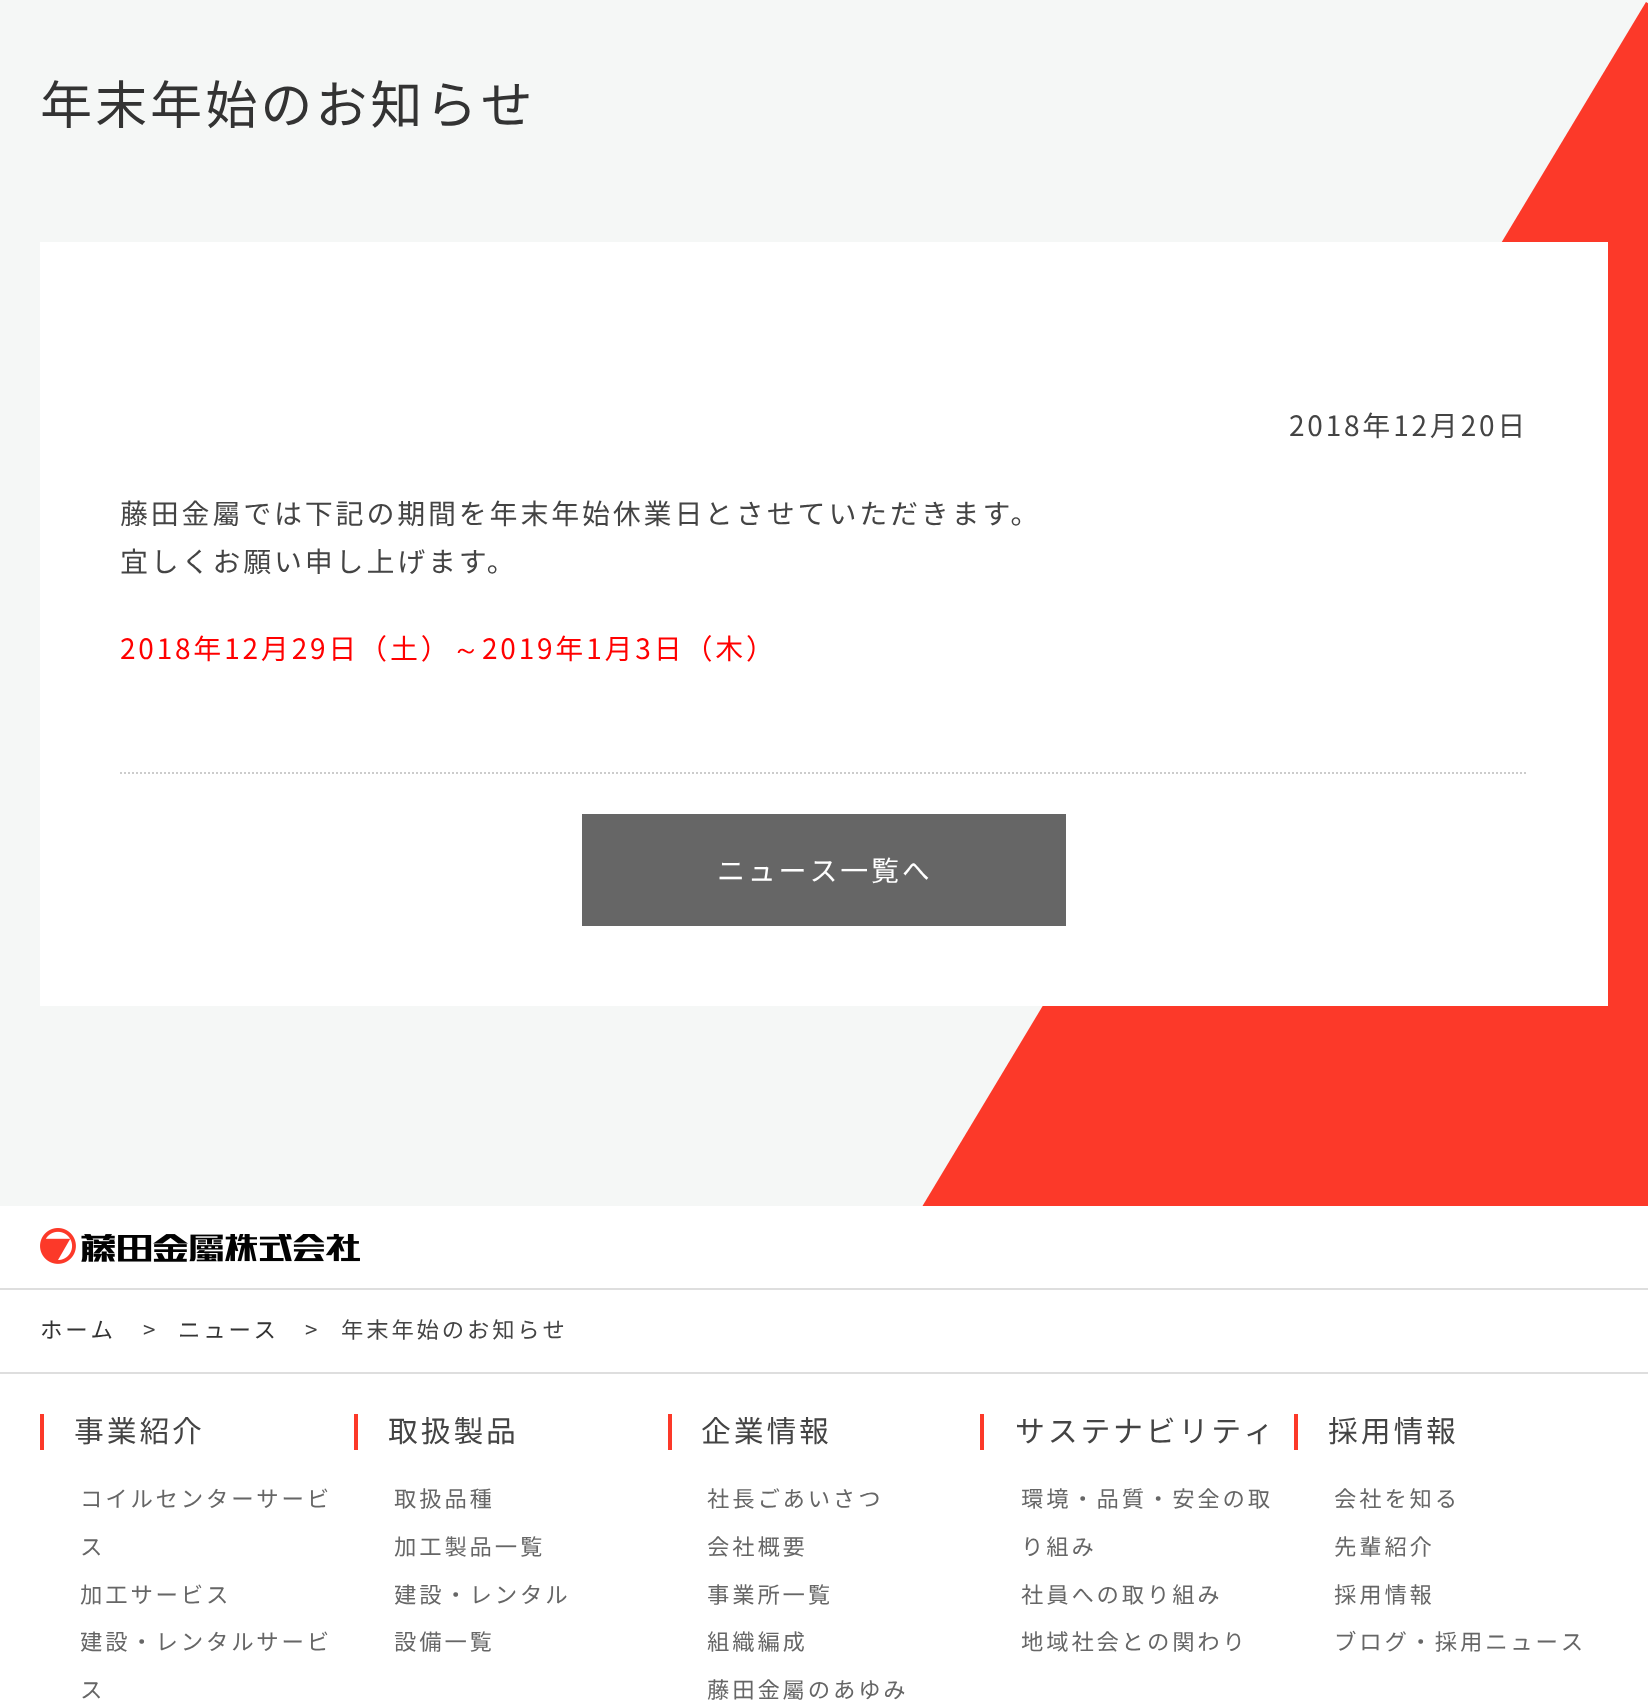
(async () => {
  const canvas = document.querySelector("canvas");
  canvas.width = 1648;
  canvas.height = 1701;
  const ctx = canvas.getContext("2d");
  ctx.miterLimit = 4;
  ctx.fontKerning = "normal";
  async function loadImage(src) {
    const img = new Image();
    img.src = src;
    await img.decode();
    return img;
  }
  let path;

  ctx.fillStyle = "#f5f7f6";
  ctx.fillRect(0, 0, 1648, 1701);
  ctx.fillStyle = "#fc3929";
  path = new Path2D("M1646 2L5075 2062L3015 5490L-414 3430Z");
  ctx.fill(path);
  ctx.fillStyle = "#ffffff";
  ctx.fillRect(40, 242, 1568, 764);
  path = new Path2D("M120 773H1528");
  ctx.strokeStyle = "#cccccc";
  ctx.lineWidth = 2;
  ctx.setLineDash([2, 2]);
  ctx.stroke(path);
  for (const [x, y, w, h, color] of [
    [582, 814, 484, 112, "#666666"],
    [0, 1206, 1648, 495, "#ffffff"],
    [0, 1288, 1648, 2, "#dedede"],
  ]) {
    ctx.fillStyle = color;
    ctx.fillRect(x, y, w, h);
  }
  ctx.drawImage(await loadImage("img/1.png"), 40, 1228, 320, 36);
  for (const [x, y, w, h, color] of [
    [0, 1372, 1648, 2, "#dedede"],
    [40, 1414, 4, 36, "#fc3929"],
    [354, 1414, 4, 36, "#fc3929"],
    [668, 1414, 4, 36, "#fc3929"],
    [980, 1414, 4, 36, "#fc3929"],
    [1294, 1414, 4, 36, "#fc3929"],
  ]) {
    ctx.fillStyle = color;
    ctx.fillRect(x, y, w, h);
  }
  ctx.letterSpacing = "2.8px";
  ctx.font = "52.25px Noto Sans JP";
  ctx.fillStyle = "#333333";
  ctx.fillText("年末年始のお知らせ", 40, 124);
  ctx.font = "28px Noto Sans JP";
  ctx.fillStyle = "#444444";
  for (const [text, x, y] of [
    ["2018年12月20日", 1289, 436],
    ["藤田金屬では下記の期間を年末年始休業日とさせていただきます。", 120, 524],
    ["宜しくお願い申し上げます。", 120, 572],
  ]) {
    ctx.fillText(text, x, y);
  }
  ctx.fillStyle = "#ff0000";
  ctx.fillText("2018年12月29日（土）", 120, 659);
  ctx.font = "500 28px WenQuanYi Zen Hei";
  ctx.fillText("～", 452, 659);
  ctx.font = "28px Noto Sans JP";
  ctx.fillText("2019年1月3日（木）", 482, 659);
  ctx.fillStyle = "#ffffff";
  ctx.fillText("ニュース一覧へ", 717, 881);
  ctx.font = "22.4px Noto Sans JP";
  ctx.fillStyle = "#333333";
  ctx.fillText("ホーム", 40, 1338);
  ctx.fillStyle = "#444444";
  ctx.fillText(">", 143, 1338);
  ctx.fillStyle = "#333333";
  ctx.fillText("ニュース", 178, 1338);
  ctx.fillStyle = "#444444";
  ctx.fillText(">", 305, 1338);
  ctx.fillText("年末年始のお知らせ", 341, 1338);
  ctx.font = "29.9px Noto Sans JP";
  ctx.fillText("事業紹介", 74, 1442);
  ctx.font = "22.4px Noto Sans JP";
  ctx.fillStyle = "#666666";
  for (const [text, x, y] of [
    ["コイルセンターサービ", 80, 1507],
    ["ス", 80, 1555],
    ["加工サービス", 80, 1603],
    ["建設・レンタルサービ", 80, 1650],
    ["ス", 80, 1698],
  ]) {
    ctx.fillText(text, x, y);
  }
  ctx.font = "29.9px Noto Sans JP";
  ctx.fillStyle = "#444444";
  ctx.fillText("取扱製品", 388, 1442);
  ctx.font = "22.4px Noto Sans JP";
  ctx.fillStyle = "#666666";
  for (const [text, x, y] of [
    ["取扱品種", 394, 1507],
    ["加工製品一覧", 394, 1555],
    ["建設・レンタル", 394, 1603],
    ["設備一覧", 394, 1650],
  ]) {
    ctx.fillText(text, x, y);
  }
  ctx.font = "29.9px Noto Sans JP";
  ctx.fillStyle = "#444444";
  ctx.fillText("企業情報", 701, 1442);
  ctx.font = "22.4px Noto Sans JP";
  ctx.fillStyle = "#666666";
  for (const [text, x, y] of [
    ["社長ごあいさつ", 707, 1507],
    ["会社概要", 707, 1555],
    ["事業所一覧", 707, 1603],
    ["組織編成", 707, 1650],
    ["藤田金屬のあゆみ", 707, 1698],
  ]) {
    ctx.fillText(text, x, y);
  }
  ctx.font = "29.9px Noto Sans JP";
  ctx.fillStyle = "#444444";
  ctx.fillText("サステナビリティ", 1015, 1442);
  ctx.font = "22.4px Noto Sans JP";
  ctx.fillStyle = "#666666";
  for (const [text, x, y] of [
    ["環境・品質・安全の取", 1021, 1507],
    ["り組み", 1021, 1555],
    ["社員への取り組み", 1021, 1603],
    ["地域社会との関わり", 1021, 1650],
  ]) {
    ctx.fillText(text, x, y);
  }
  ctx.font = "29.9px Noto Sans JP";
  ctx.fillStyle = "#444444";
  ctx.fillText("採用情報", 1328, 1442);
  ctx.font = "22.4px Noto Sans JP";
  ctx.fillStyle = "#666666";
  for (const [text, x, y] of [
    ["会社を知る", 1334, 1507],
    ["先輩紹介", 1334, 1555],
    ["採用情報", 1334, 1603],
    ["ブログ・採用ニュース", 1334, 1650],
  ]) {
    ctx.fillText(text, x, y);
  }
})();
